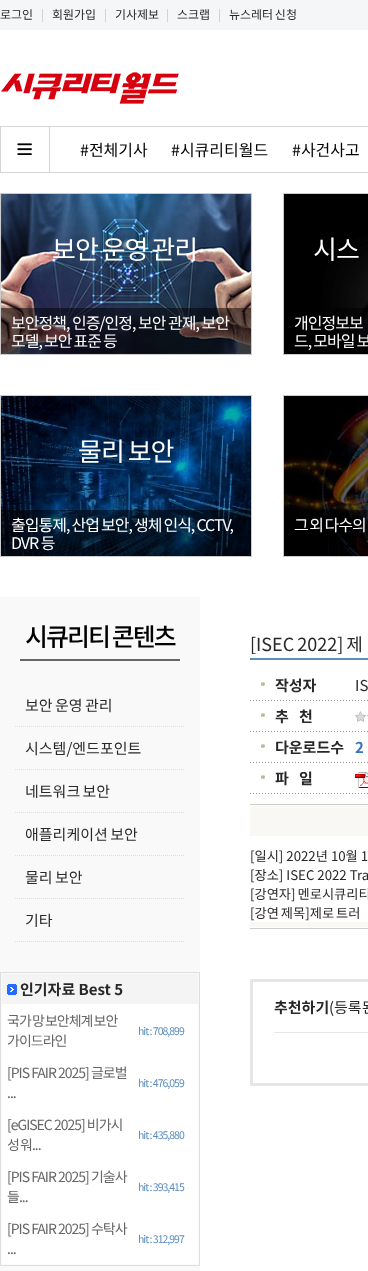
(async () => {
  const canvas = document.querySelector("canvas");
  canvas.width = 368;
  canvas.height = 1271;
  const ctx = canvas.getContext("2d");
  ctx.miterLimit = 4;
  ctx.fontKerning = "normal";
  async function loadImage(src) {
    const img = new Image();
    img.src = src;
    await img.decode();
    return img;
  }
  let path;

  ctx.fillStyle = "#ffffff";
  ctx.fillRect(0, 0, 368, 1271);
  ctx.fillStyle = "#f5f6f8";
  ctx.fillRect(0, 0, 368, 30);
  ctx.fillStyle = "#d5d5d5";
  ctx.fillRect(0, 172, 368, 1);
  ctx.drawImage(await loadImage("img/1.png"), 1, 72, 178, 32);
  ctx.fillRect(0, 126, 368, 1);
  ctx.drawImage(await loadImage("img/2.png"), 0, 127, 50, 45);
  ctx.drawImage(await loadImage("img/3.png"), 1, 194, 250, 160);
  ctx.strokeStyle = "#cccccc";
  ctx.strokeRect(0.5, 193.5, 251, 161);
  ctx.fillStyle = "rgba(0, 0, 0, 0.5)";
  ctx.fillRect(1, 308, 250, 46);
  ctx.drawImage(await loadImage("img/4.png"), 284, 194, 84, 160);
  ctx.strokeRect(283.5, 193.5, 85, 161);
  ctx.fillRect(333, 308, 35, 43);
  ctx.drawImage(await loadImage("img/5.png"), 1, 396, 250, 160);
  ctx.strokeRect(0.5, 395.5, 251, 161);
  ctx.fillRect(1, 510, 250, 46);
  ctx.drawImage(await loadImage("img/6.png"), 284, 396, 84, 160);
  ctx.strokeRect(283.5, 395.5, 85, 161);
  for (const [x, y, w, h, color] of [
    [312, 510, 56, 28, "rgba(0, 0, 0, 0.5)"],
    [0, 597, 200, 674, "#f9f9f9"],
    [20, 659, 160, 2, "#676767"],
  ]) {
    ctx.fillStyle = color;
    ctx.fillRect(x, y, w, h);
  }
  path = new Path2D("M15 726.5H185");
  ctx.strokeStyle = "#dfdfdf";
  ctx.setLineDash([1, 1]);
  ctx.stroke(path);
  path = new Path2D("M15 769.5H185");
  ctx.stroke(path);
  path = new Path2D("M15 812.5H185");
  ctx.stroke(path);
  path = new Path2D("M15 855.5H185");
  ctx.stroke(path);
  path = new Path2D("M15 898.5H185");
  ctx.stroke(path);
  path = new Path2D("M15 941.5H185");
  ctx.stroke(path);
  ctx.strokeStyle = "#dedede";
  ctx.setLineDash([]);
  ctx.strokeRect(0.5, 972.5, 199, 293);
  ctx.fillStyle = "#f4f4f4";
  ctx.fillRect(2, 974, 196, 30);
  ctx.drawImage(await loadImage("img/7.png"), 7, 984, 10, 11);
  ctx.fillStyle = "#ffffff";
  ctx.fillRect(2, 1004, 196, 260);
  ctx.fillStyle = "#5c8ebe";
  ctx.fillRect(250, 658, 118, 2);
  ctx.drawImage(await loadImage("img/8.png"), 261, 682, 4, 4);
  ctx.drawImage(await loadImage("img/9.png"), 250, 700, 118, 1);
  ctx.drawImage(await loadImage("img/8.png"), 261, 713, 4, 4);
  ctx.drawImage(await loadImage("img/10.png"), 355, 711, 13, 11);
  ctx.drawImage(await loadImage("img/9.png"), 250, 731, 118, 1);
  ctx.drawImage(await loadImage("img/8.png"), 261, 744, 4, 4);
  ctx.drawImage(await loadImage("img/9.png"), 250, 762, 118, 1);
  ctx.drawImage(await loadImage("img/8.png"), 261, 775, 4, 4);
  ctx.drawImage(await loadImage("img/11.png"), 355, 772, 13, 16);
  ctx.drawImage(await loadImage("img/9.png"), 250, 793, 118, 1);
  for (const [x, y, w, h, color] of [
    [250, 804, 118, 1, "#cccccc"],
    [250, 806, 118, 30, "#f9f8f4"],
    [250, 922, 118, 5, "#f9f8f4"],
    [250, 928, 118, 1, "#cccccc"],
  ]) {
    ctx.fillStyle = color;
    ctx.fillRect(x, y, w, h);
  }
  ctx.strokeStyle = "#e6e6e6";
  ctx.lineWidth = 3;
  ctx.strokeRect(251.5, 980.5, 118, 104);
  ctx.fillStyle = "#e6e6e6";
  ctx.fillRect(274, 1032, 94, 1);
  ctx.font = "12px Noto Sans KR";
  ctx.fillStyle = "#282828";
  ctx.fillText("로그인", 0, 19);
  ctx.fillStyle = "#cccccc";
  ctx.fillText("|", 41, 19);
  ctx.fillStyle = "#282828";
  ctx.fillText("회원가입", 52, 19);
  ctx.fillStyle = "#cccccc";
  ctx.fillText("|", 104, 19);
  ctx.fillStyle = "#282828";
  ctx.fillText("기사제보", 115, 19);
  ctx.fillStyle = "#cccccc";
  ctx.fillText("|", 166, 19);
  ctx.fillStyle = "#282828";
  ctx.fillText("스크랩", 177, 19);
  ctx.fillStyle = "#cccccc";
  ctx.fillText("|", 218, 19);
  ctx.wordSpacing = "-1px";
  ctx.fillStyle = "#282828";
  ctx.fillText("뉴스레터 신청", 229, 19);
  ctx.wordSpacing = "0px";
  ctx.font = "16px Noto Sans KR";
  ctx.fillStyle = "#000000";
  for (const [text, x, y] of [
    ["#전체기사", 80, 156],
    ["#시큐리티월드", 171, 156],
    ["#사건사고", 292, 156],
  ]) {
    ctx.fillText(text, x, y);
  }
  ctx.letterSpacing = "-1px";
  ctx.wordSpacing = "-1px";
  ctx.font = "26px Noto Sans KR";
  ctx.fillStyle = "#ffffff";
  ctx.fillText("보안 운영 관리", 52, 259);
  ctx.wordSpacing = "0px";
  ctx.font = "16px Noto Sans KR";
  ctx.fillText("보안정책, 인증/인정, 보안 관제, 보안", 11, 329);
  ctx.wordSpacing = "-0.5px";
  ctx.fillText("모델, 보안 표준 등", 11, 347);
  ctx.wordSpacing = "0px";
  ctx.font = "26px Noto Sans KR";
  ctx.fillText("시스", 313, 259);
  ctx.font = "16px Noto Sans KR";
  ctx.fillText("개인정보보", 294, 329);
  ctx.wordSpacing = "-0.5px";
  ctx.fillText("드, 모바일 보", 294, 347);
  ctx.wordSpacing = "-1px";
  ctx.font = "26px Noto Sans KR";
  ctx.fillText("물리 보안", 78, 461);
  ctx.wordSpacing = "-0.5px";
  ctx.font = "16px Noto Sans KR";
  ctx.fillText("출입통제, 산업 보안, 생체 인식, CCTV,", 11, 531);
  ctx.wordSpacing = "0px";
  ctx.fillText("DVR 등", 11, 549);
  ctx.wordSpacing = "-1px";
  ctx.fillText("그 외 다수의", 294, 531);
  ctx.letterSpacing = "-2px";
  ctx.font = "500 25px Noto Sans KR";
  ctx.fillStyle = "#000000";
  ctx.fillText("시큐리티 콘텐츠", 25, 646);
  ctx.letterSpacing = "0px";
  ctx.font = "15px Noto Sans KR";
  ctx.fillStyle = "#282828";
  ctx.fillText("보안 운영 관리", 25, 711);
  ctx.wordSpacing = "0px";
  ctx.fillText("시스템/엔드포인트", 25, 754);
  ctx.wordSpacing = "-1px";
  for (const [text, x, y] of [
    ["네트워크 보안", 25, 797],
    ["애플리케이션 보안", 25, 840],
    ["물리 보안", 25, 883],
  ]) {
    ctx.fillText(text, x, y);
  }
  ctx.wordSpacing = "0px";
  ctx.fillText("기타", 25, 926);
  ctx.font = "bold 15px Noto Sans KR";
  ctx.fillText("인기자료 Best 5", 20, 995);
  ctx.letterSpacing = "-1px";
  ctx.wordSpacing = "-1px";
  ctx.font = "14px Noto Sans KR";
  ctx.fillStyle = "#666666";
  ctx.fillText("국가 망 보안체계 보안", 7, 1026);
  ctx.wordSpacing = "0px";
  ctx.fillText("가이드라인", 7, 1046);
  ctx.font = "10.5px Noto Sans KR";
  ctx.fillStyle = "#5c8ebe";
  ctx.fillText("hit : 708,899", 138, 1035);
  ctx.font = "14px Noto Sans KR";
  ctx.fillStyle = "#666666";
  ctx.fillText("[PIS FAIR 2025] 글로벌", 7, 1078);
  ctx.fillText("...", 7, 1098);
  ctx.font = "10.5px Noto Sans KR";
  ctx.fillStyle = "#5c8ebe";
  ctx.fillText("hit : 476,059", 138, 1087);
  ctx.font = "14px Noto Sans KR";
  ctx.fillStyle = "#666666";
  ctx.fillText("[eGISEC 2025] 비가시", 7, 1130);
  ctx.wordSpacing = "-1px";
  ctx.fillText("성 워...", 7, 1150);
  ctx.wordSpacing = "0px";
  ctx.font = "10.5px Noto Sans KR";
  ctx.fillStyle = "#5c8ebe";
  ctx.fillText("hit : 435,880", 138, 1139);
  ctx.font = "14px Noto Sans KR";
  ctx.fillStyle = "#666666";
  ctx.fillText("[PIS FAIR 2025] 기술사", 7, 1182);
  ctx.fillText("들...", 7, 1202);
  ctx.font = "10.5px Noto Sans KR";
  ctx.fillStyle = "#5c8ebe";
  ctx.fillText("hit : 393,415", 138, 1191);
  ctx.font = "14px Noto Sans KR";
  ctx.fillStyle = "#666666";
  ctx.fillText("[PIS FAIR 2025] 수탁사", 7, 1234);
  ctx.fillText("...", 7, 1254);
  ctx.font = "10.5px Noto Sans KR";
  ctx.fillStyle = "#5c8ebe";
  ctx.fillText("hit : 312,997", 138, 1243);
  ctx.letterSpacing = "0px";
  ctx.wordSpacing = "-1px";
  ctx.font = "18px Noto Sans KR";
  ctx.fillStyle = "#282828";
  ctx.fillText("[ISEC 2022] 제", 250, 651);
  ctx.wordSpacing = "0px";
  ctx.font = "bold 15px Noto Sans KR";
  ctx.fillText("작성자", 275, 691);
  ctx.font = "15px Noto Sans KR";
  ctx.fillText("IS", 355, 691);
  ctx.font = "bold 15px Noto Sans KR";
  ctx.fillText("추   천", 275, 722);
  ctx.fillText("다운로드수", 275, 753);
  ctx.fillStyle = "#3674bd";
  ctx.fillText("2", 355, 753);
  ctx.fillStyle = "#282828";
  ctx.fillText("파   일", 275, 784);
  ctx.font = "13.25px Noto Sans KR";
  ctx.fillText("[일시] 2022년 10월 1", 250, 861);
  ctx.fillText("[장소] ISEC 2022 Tra", 250, 880);
  ctx.wordSpacing = "-1px";
  ctx.fillText("[강연자] 멘로시큐리티", 250, 899);
  ctx.fillText("[강연 제목]제로 트러", 250, 918);
  ctx.wordSpacing = "0px";
  ctx.font = "bold 15px Noto Sans KR";
  ctx.fillText("추천하기", 274, 1013);
  ctx.wordSpacing = "-1px";
  ctx.font = "15px Noto Sans KR";
  ctx.fillText("(등록된", 329, 1013);
})();
